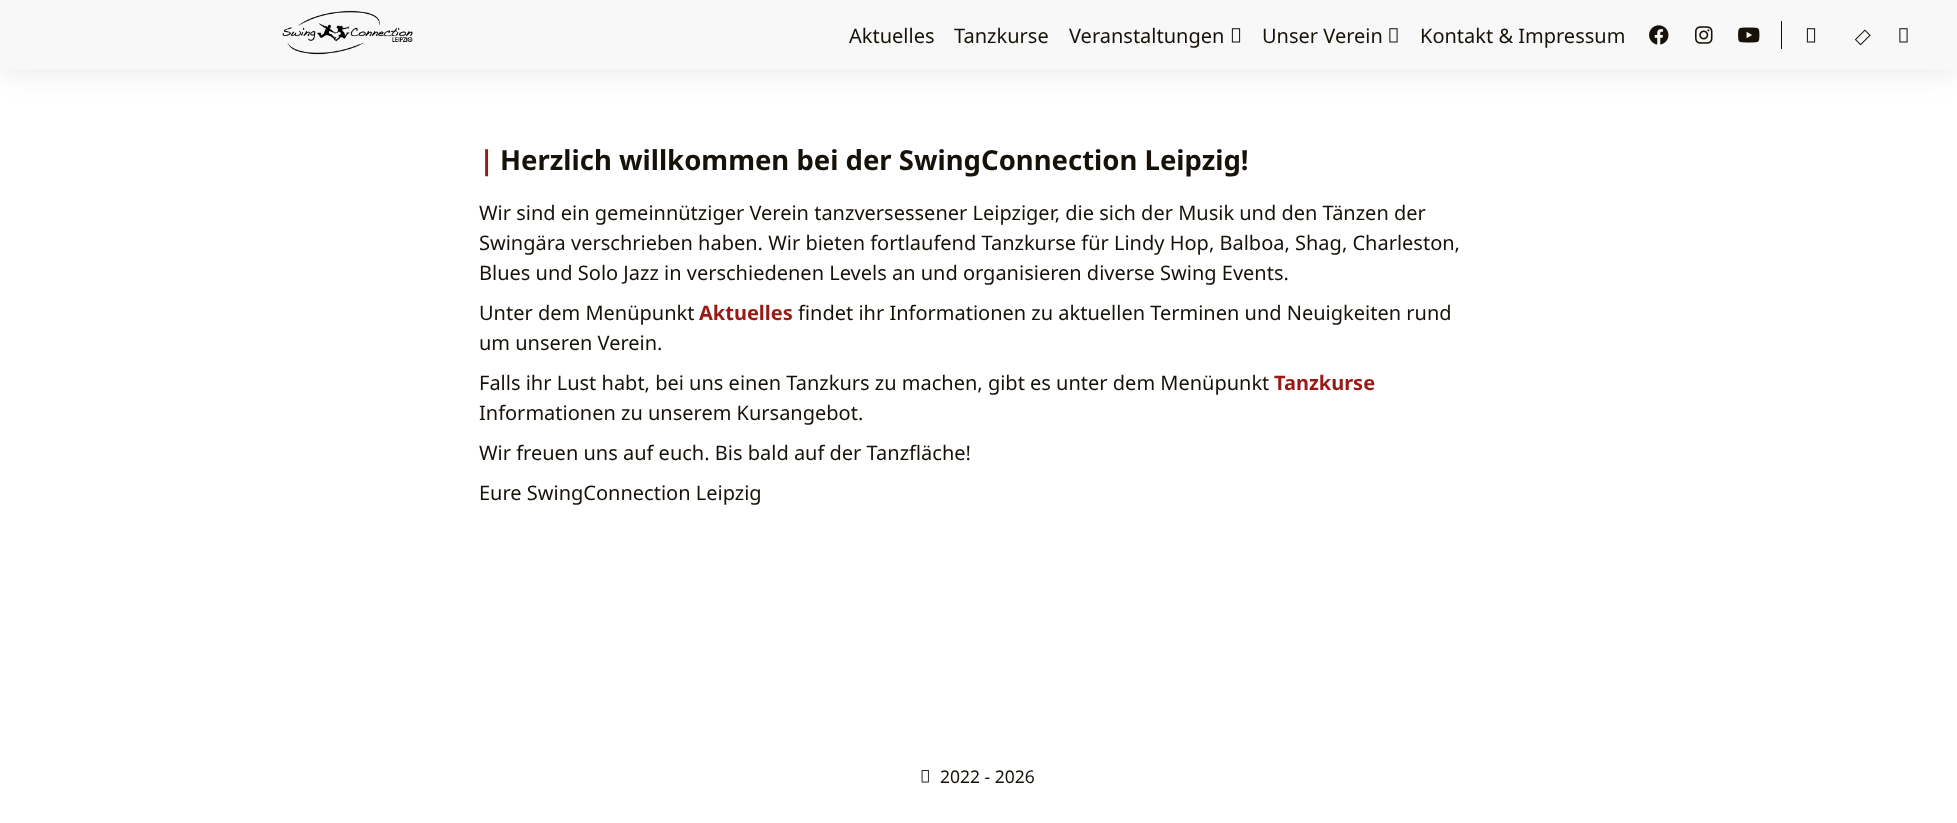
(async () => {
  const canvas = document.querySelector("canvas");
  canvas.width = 1957;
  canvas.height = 823;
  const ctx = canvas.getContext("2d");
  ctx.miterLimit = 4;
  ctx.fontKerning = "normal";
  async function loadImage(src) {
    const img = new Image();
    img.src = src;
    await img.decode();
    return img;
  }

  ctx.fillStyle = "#ffffff";
  ctx.fillRect(0, 0, 1957, 823);
  ctx.fillStyle = "rgba(0, 0, 0, 0.1)";
  ctx.filter = "blur(15px)";
  ctx.beginPath();
  ctx.rect(0, 0, 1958, 70);
  ctx.fill();
  ctx.filter = "none";
  ctx.fillStyle = "#f8f8f8";
  ctx.fillRect(0, 0, 1957, 70);
  ctx.drawImage(await loadImage("img/1.png"), 282, 10, 131, 45);
  ctx.drawImage(await loadImage("img/2.png"), 1231, 28, 10, 15);
  ctx.drawImage(await loadImage("img/3.png"), 1389, 28, 9, 15);
  ctx.drawImage(await loadImage("img/4.png"), 1649, 25, 20, 20);
  ctx.drawImage(await loadImage("img/5.png"), 1695, 26, 18, 18);
  ctx.drawImage(await loadImage("img/6.png"), 1738, 27, 22, 16);
  ctx.fillStyle = "#161209";
  ctx.fillRect(1781, 21, 1, 28);
  ctx.drawImage(await loadImage("img/2.png"), 1806, 28, 10, 15);
  ctx.drawImage(await loadImage("img/7.png"), 1854, 29, 17, 17);
  ctx.drawImage(await loadImage("img/3.png"), 1899, 28, 9, 15);
  ctx.drawImage(await loadImage("img/8.png"), 921, 770, 8, 13);
  ctx.font = "20px Noto Sans";
  for (const [text, x, y] of [
    ["Aktuelles", 849, 43],
    ["Tanzkurse", 954, 43],
    ["Veranstaltungen", 1069, 43],
    ["Unser Verein", 1262, 43],
    ["Kontakt & Impressum", 1420, 43],
  ]) {
    ctx.fillText(text, x, y);
  }
  ctx.font = "bold 27.5px Noto Sans";
  ctx.fillStyle = "#991916";
  ctx.fillText("|", 479, 170);
  ctx.fillStyle = "#161209";
  ctx.fillText("Herzlich willkommen bei der SwingConnection Leipzig!", 500, 170);
  ctx.font = "20px Noto Sans";
  for (const [text, x, y] of [
    ["Wir sind ein gemeinnütziger Verein tanzversessener Leipziger, die sich der Musik und den Tänzen der", 479, 220],
    ["Swingära verschrieben haben. Wir bieten fortlaufend Tanzkurse für Lindy Hop, Balboa, Shag, Charleston,", 479, 250],
    ["Blues und Solo Jazz in verschiedenen Levels an und organisieren diverse Swing Events.", 479, 280],
    ["Unter dem Menüpunkt", 479, 320],
  ]) {
    ctx.fillText(text, x, y);
  }
  ctx.font = "bold 20px Noto Sans";
  ctx.fillStyle = "#991916";
  ctx.fillText("Aktuelles", 699, 320);
  ctx.font = "20px Noto Sans";
  ctx.fillStyle = "#161209";
  for (const [text, x, y] of [
    ["findet ihr Informationen zu aktuellen Terminen und Neuigkeiten rund", 798, 320],
    ["um unseren Verein.", 479, 350],
    ["Falls ihr Lust habt, bei uns einen Tanzkurs zu machen, gibt es unter dem Menüpunkt", 479, 390],
  ]) {
    ctx.fillText(text, x, y);
  }
  ctx.font = "bold 20px Noto Sans";
  ctx.fillStyle = "#991916";
  ctx.fillText("Tanzkurse", 1274, 390);
  ctx.font = "20px Noto Sans";
  ctx.fillStyle = "#161209";
  for (const [text, x, y] of [
    ["Informationen zu unserem Kursangebot.", 479, 420],
    ["Wir freuen uns auf euch. Bis bald auf der Tanzfläche!", 479, 460],
    ["Eure SwingConnection Leipzig", 479, 500],
  ]) {
    ctx.fillText(text, x, y);
  }
  ctx.font = "17.5px Noto Sans";
  ctx.fillText("2022 - 2026", 940, 783);
})();
